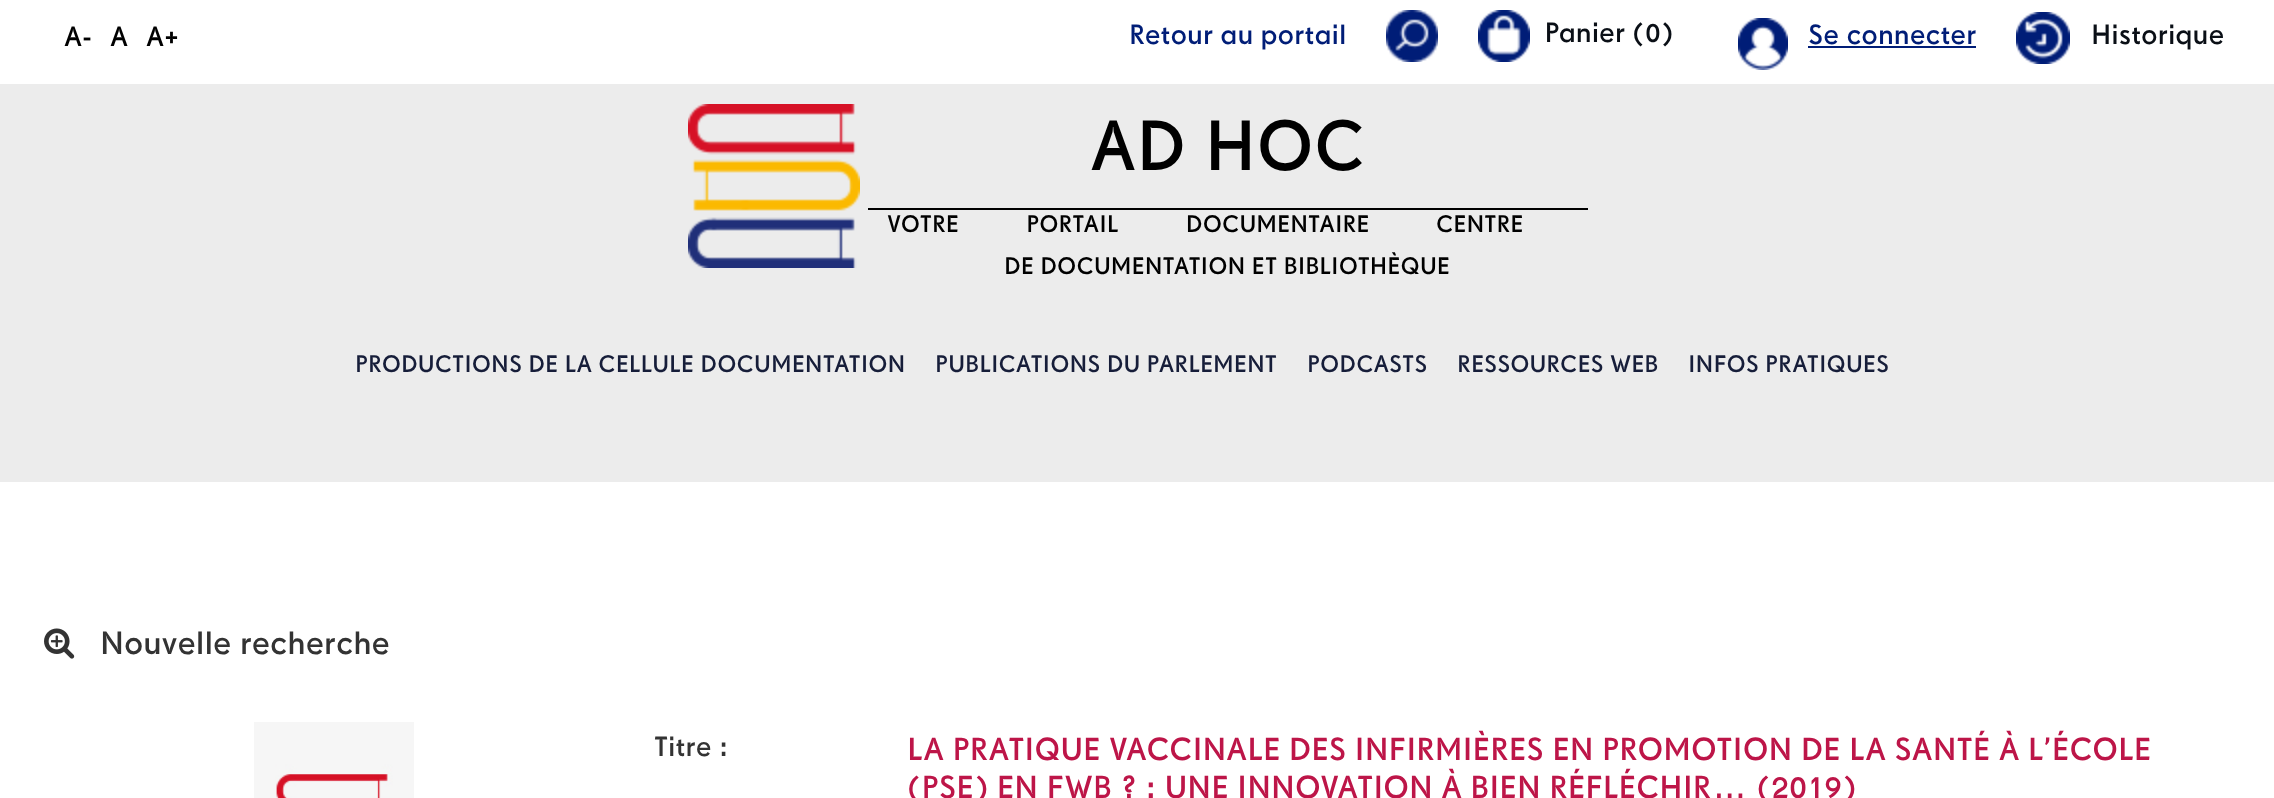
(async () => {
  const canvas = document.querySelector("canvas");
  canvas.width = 2274;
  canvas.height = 798;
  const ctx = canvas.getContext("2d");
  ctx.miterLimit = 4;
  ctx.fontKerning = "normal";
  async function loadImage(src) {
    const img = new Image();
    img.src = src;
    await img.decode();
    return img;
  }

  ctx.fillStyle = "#ffffff";
  ctx.fillRect(0, 0, 2274, 798);
  ctx.drawImage(await loadImage("img/1.png"), 1386, 10, 52, 52);
  ctx.drawImage(await loadImage("img/2.png"), 1478, 10, 194, 52);
  ctx.drawImage(await loadImage("img/3.png"), 1738, 18, 50, 52);
  ctx.fillStyle = "#001d77";
  ctx.fillRect(1808, 46, 168, 2);
  ctx.drawImage(await loadImage("img/4.png"), 2016, 12, 54, 52);
  ctx.fillStyle = "#ececec";
  ctx.fillRect(0, 84, 2274, 398);
  ctx.drawImage(await loadImage("img/5.png"), 688, 104, 172, 164);
  ctx.fillStyle = "#000000";
  ctx.fillRect(868, 208, 720, 2);
  ctx.drawImage(await loadImage("img/6.png"), 44, 628, 31, 31);
  ctx.drawImage(await loadImage("img/7.png"), 254, 722, 160, 76);
  ctx.font = "28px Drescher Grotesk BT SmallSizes";
  for (const [text, x, y] of [
    ["A-", 64, 46],
    ["A", 110, 46],
    ["A+", 146, 46],
  ]) {
    ctx.fillText(text, x, y);
  }
  ctx.fillStyle = "#001d77";
  ctx.fillText("Retour au portail", 1129, 44);
  ctx.fillText("Se connecter", 1808, 44);
  ctx.fillStyle = "#0a0f16";
  ctx.fillText("Historique", 2091, 44);
  ctx.font = "71.5px Drescher Grotesk BT SmallSizes";
  ctx.fillStyle = "#000000";
  ctx.fillText("AD HOC", 1090, 170);
  ctx.wordSpacing = "61px";
  ctx.font = "24.1px Drescher Grotesk BT SmallSizes";
  ctx.fillText("VOTRE PORTAIL DOCUMENTAIRE", 887, 232);
  ctx.wordSpacing = "0px";
  ctx.fillText("CENTRE", 1436, 232);
  ctx.fillText("DE DOCUMENTATION ET BIBLIOTHÈQUE", 1004, 274);
  ctx.fillStyle = "#161d39";
  for (const [text, x, y] of [
    ["PRODUCTIONS DE LA CELLULE DOCUMENTATION", 355, 372],
    ["PUBLICATIONS DU PARLEMENT", 935, 372],
    ["PODCASTS", 1307, 372],
    ["RESSOURCES WEB", 1457, 372],
    ["INFOS PRATIQUES", 1688, 372],
  ]) {
    ctx.fillText(text, x, y);
  }
  ctx.font = "32.5px Drescher Grotesk BT SmallSizes";
  ctx.fillStyle = "#333333";
  ctx.fillText("Nouvelle recherche", 100, 654);
  ctx.font = "28px Drescher Grotesk BT SmallSizes";
  ctx.fillText("Titre :", 654, 756);
  ctx.font = "32.2px Drescher Grotesk BT SmallSizes";
  ctx.fillStyle = "#bd1548";
  ctx.fillText("LA PRATIQUE VACCINALE DES INFIRMIÈRES EN PROMOTION DE LA SANTÉ À L’ÉCOLE", 907, 760);
  ctx.fillText("(PSE) EN FWB ? : UNE INNOVATION À BIEN RÉFLÉCHIR… (2019)", 907, 798);
})();
